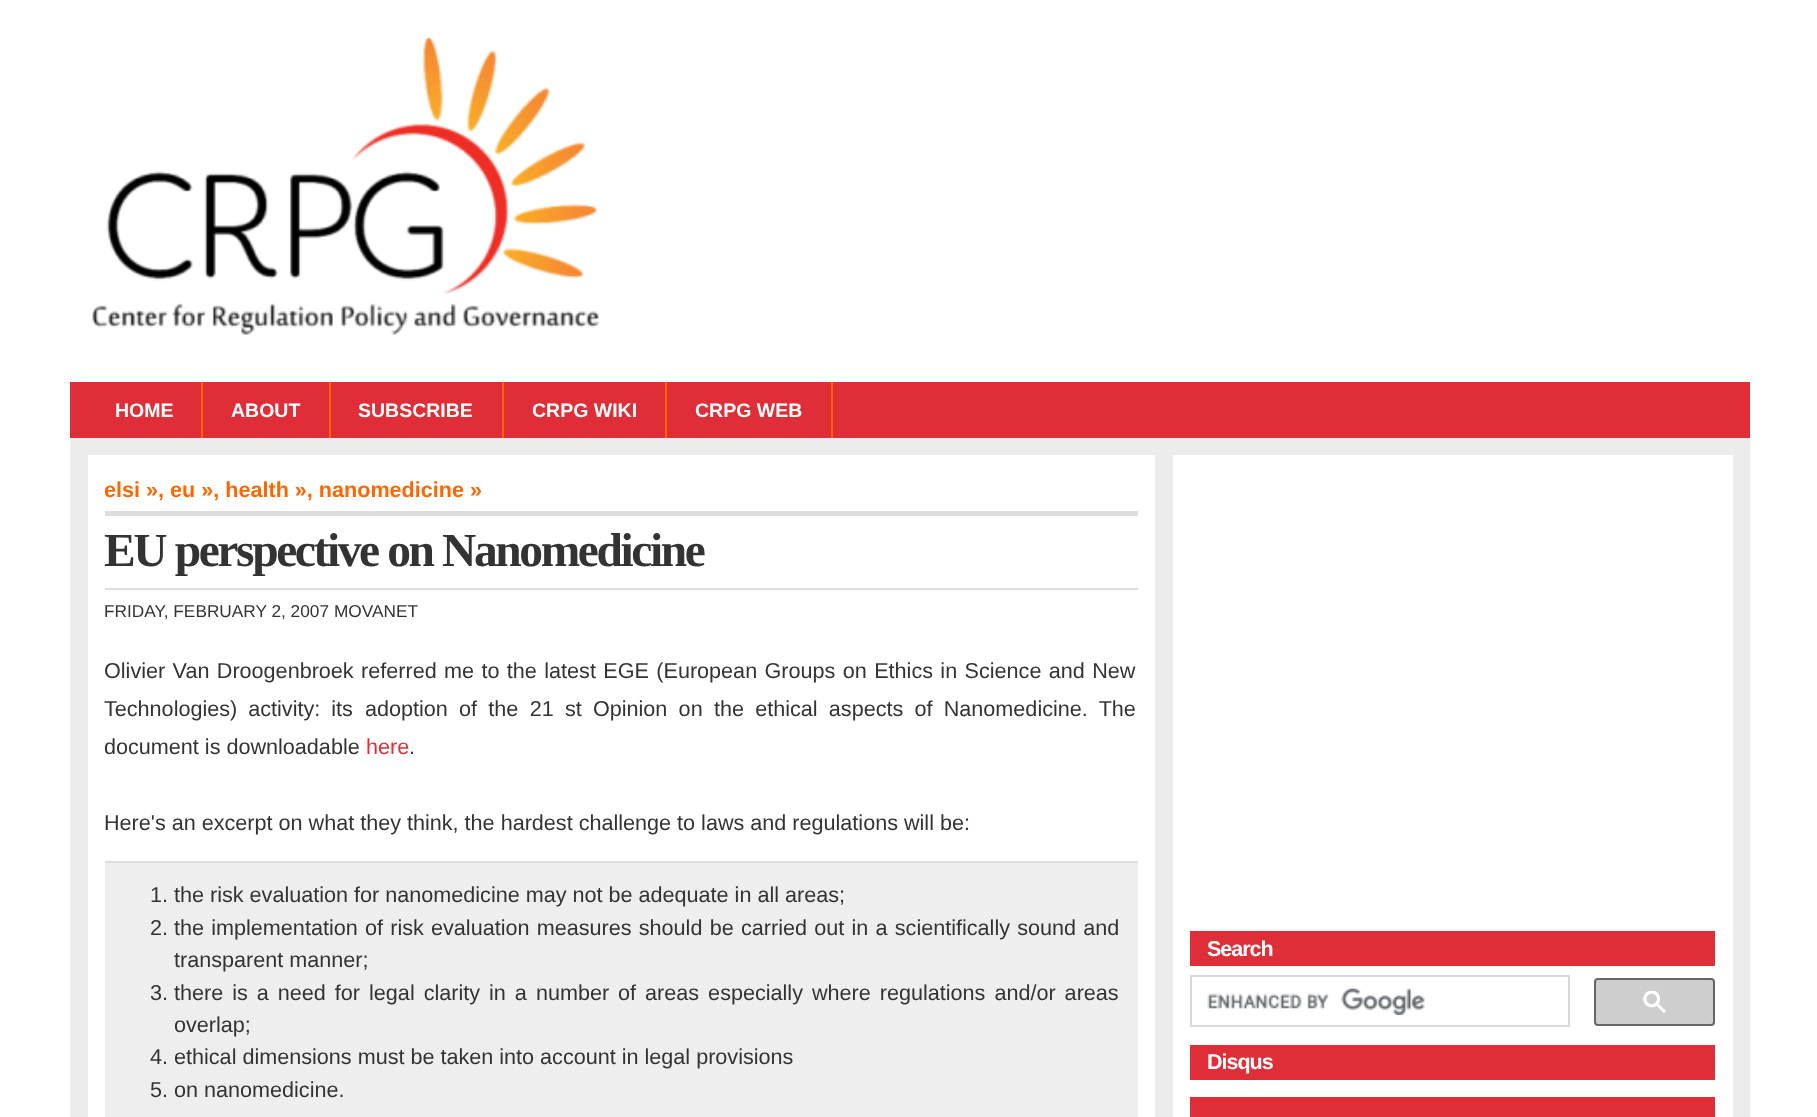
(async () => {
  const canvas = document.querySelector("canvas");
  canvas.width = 1817;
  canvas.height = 1117;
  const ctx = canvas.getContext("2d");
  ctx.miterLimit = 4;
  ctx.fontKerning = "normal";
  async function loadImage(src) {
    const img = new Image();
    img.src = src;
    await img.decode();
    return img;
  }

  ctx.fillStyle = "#ffffff";
  ctx.fillRect(0, 0, 1817, 1117);
  ctx.drawImage(await loadImage("img/1.png"), 92, 36, 507, 299);
  for (const [x, y, w, h, color] of [
    [70, 382, 1680, 56, "#df2e37"],
    [201, 382, 2, 56, "#ff6600"],
    [329, 382, 2, 56, "#ff6600"],
    [502, 382, 2, 56, "#ff6600"],
    [665, 382, 2, 56, "#ff6600"],
    [831, 382, 2, 56, "#ff6600"],
    [70, 438, 1680, 679, "#ececec"],
    [88, 455, 1067, 662, "#ffffff"],
    [105, 511, 1033, 5, "#dddddd"],
    [105, 588, 1033, 2, "#dddddd"],
    [105, 863, 1033, 254, "#eeeeee"],
    [105, 861, 1033, 2, "#dddddd"],
    [1173, 455, 560, 662, "#ffffff"],
    [1190, 931, 525, 35, "#df2e37"],
  ]) {
    ctx.fillStyle = color;
    ctx.fillRect(x, y, w, h);
  }
  ctx.strokeStyle = "#d9d9d9";
  ctx.lineWidth = 2;
  ctx.strokeRect(1191, 976, 378, 50);
  ctx.drawImage(await loadImage("img/2.png"), 1207, 988, 218, 27);
  ctx.fillStyle = "#cecece";
  ctx.beginPath();
  ctx.roundRect(1595, 979, 119, 46, 3);
  ctx.fill();
  ctx.strokeStyle = "#666666";
  ctx.stroke();
  ctx.drawImage(await loadImage("img/3.png"), 1643, 991, 23, 22);
  ctx.fillStyle = "#df2e37";
  ctx.fillRect(1190, 1045, 525, 35);
  ctx.fillRect(1190, 1097, 525, 20);
  ctx.font = "bold 19.5px Liberation Sans";
  ctx.fillStyle = "#ffffff";
  for (const [text, x, y] of [
    ["HOME", 115, 417],
    ["ABOUT", 231, 417],
    ["SUBSCRIBE", 358, 417],
    ["CRPG WIKI", 532, 417],
    ["CRPG WEB", 695, 417],
  ]) {
    ctx.fillText(text, x, y);
  }
  ctx.font = "bold 21.6px Liberation Sans";
  ctx.fillStyle = "#ff6600";
  ctx.fillText("elsi », eu », health », nanomedicine »", 104, 497);
  ctx.letterSpacing = "-2.4px";
  ctx.font = "bold 47.5px Liberation Serif";
  ctx.fillStyle = "#333333";
  ctx.fillText("EU perspective on Nanomedicine", 104, 566);
  ctx.letterSpacing = "0px";
  ctx.font = "17.25px Liberation Sans";
  ctx.fillText("FRIDAY, FEBRUARY 2, 2007", 104, 617);
  ctx.fillText("MOVANET", 334, 617);
  ctx.wordSpacing = "1.4px";
  ctx.font = "21.6px Liberation Sans";
  ctx.fillText("Olivier Van Droogenbroek referred me to the latest EGE (European Groups on Ethics in Science and New", 104, 678);
  ctx.wordSpacing = "5px";
  ctx.fillText("Technologies) activity: its", 104, 716);
  ctx.wordSpacing = "5.25px";
  ctx.fillText("adoption of the 21 st Opinion on the ethical aspects of Nanomedicine. The", 365, 716);
  ctx.wordSpacing = "0px";
  ctx.fillText("document is downloadable", 104, 754);
  ctx.fillStyle = "#df2e37";
  ctx.fillText("here", 366, 754);
  ctx.fillStyle = "#333333";
  for (const [text, x, y] of [
    [".", 409, 754],
    ["Here's an excerpt on what they think, the hardest challenge to laws and regulations will be:", 104, 830],
    ["1. the risk evaluation for nanomedicine may not be adequate in all areas;", 150, 902],
    ["2.", 150, 935],
  ]) {
    ctx.fillText(text, x, y);
  }
  ctx.wordSpacing = "1.25px";
  ctx.fillText("the implementation of risk evaluation measures should be carried out in a scientifically sound and", 174, 935);
  ctx.wordSpacing = "0px";
  ctx.fillText("transparent manner;", 174, 967);
  ctx.fillText("3.", 150, 1000);
  ctx.wordSpacing = "3px";
  ctx.fillText("there is a need for legal clarity in a number of areas especially where regulations and/or areas", 174, 1000);
  ctx.wordSpacing = "0px";
  for (const [text, x, y] of [
    ["overlap;", 174, 1032],
    ["4. ethical dimensions must be taken into account in legal provisions", 150, 1064],
    ["5. on nanomedicine.", 150, 1097],
  ]) {
    ctx.fillText(text, x, y);
  }
  ctx.letterSpacing = "-1px";
  ctx.font = "bold 21.5px Liberation Sans";
  ctx.fillStyle = "#ffffff";
  ctx.fillText("Search", 1207, 956);
  ctx.fillText("Disqus", 1207, 1069);
})();
